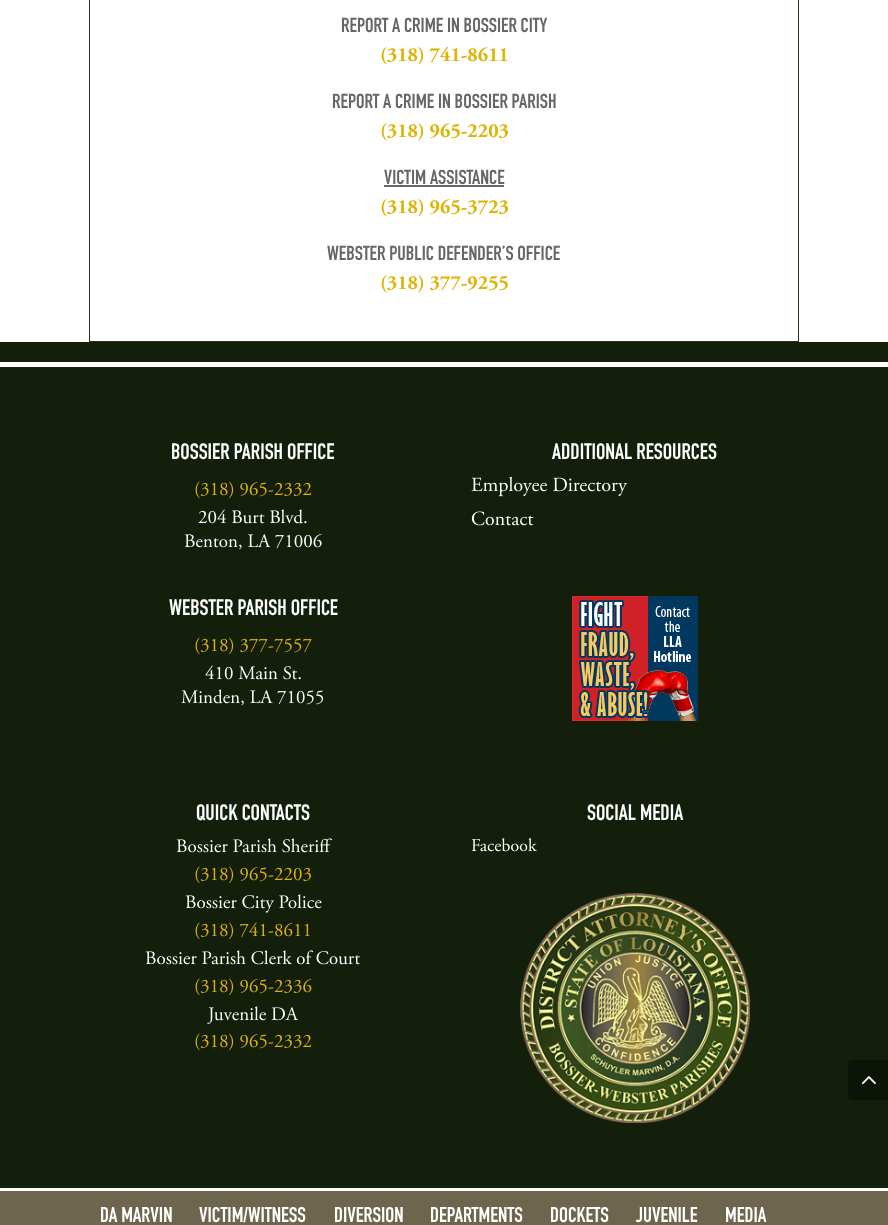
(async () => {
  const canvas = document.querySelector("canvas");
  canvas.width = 888;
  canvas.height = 1225;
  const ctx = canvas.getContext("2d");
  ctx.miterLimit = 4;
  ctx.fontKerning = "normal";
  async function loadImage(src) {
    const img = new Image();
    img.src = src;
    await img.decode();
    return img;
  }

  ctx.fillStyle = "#ffffff";
  ctx.fillRect(0, 0, 888, 1225);
  ctx.fillStyle = "#141f0b";
  ctx.fillRect(0, 342, 888, 20);
  ctx.strokeStyle = "#243517";
  ctx.strokeRect(89.5, -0.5, 709, 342);
  ctx.fillStyle = "#666666";
  ctx.fillRect(384, 185, 120, 2);
  ctx.fillStyle = "#141f0b";
  ctx.fillRect(0, 367, 888, 821);
  ctx.drawImage(await loadImage("img/1.png"), 195, 481, 117, 17);
  ctx.drawImage(await loadImage("img/2.png"), 198, 509, 109, 15);
  ctx.drawImage(await loadImage("img/3.png"), 184, 533, 138, 17);
  ctx.drawImage(await loadImage("img/4.png"), 195, 637, 117, 17);
  ctx.drawImage(await loadImage("img/5.png"), 205, 665, 96, 15);
  ctx.drawImage(await loadImage("img/6.png"), 181, 689, 143, 17);
  ctx.drawImage(await loadImage("img/7.png"), 471, 476, 157, 21);
  ctx.drawImage(await loadImage("img/8.png"), 471, 511, 63, 15);
  ctx.drawImage(await loadImage("img/9.png"), 572, 596, 126, 125);
  ctx.drawImage(await loadImage("img/10.png"), 176, 838, 156, 15);
  ctx.drawImage(await loadImage("img/11.png"), 195, 866, 116, 17);
  ctx.drawImage(await loadImage("img/12.png"), 185, 894, 137, 19);
  ctx.drawImage(await loadImage("img/13.png"), 195, 922, 115, 17);
  ctx.drawImage(await loadImage("img/14.png"), 145, 950, 215, 15);
  ctx.drawImage(await loadImage("img/15.png"), 195, 978, 117, 17);
  ctx.drawImage(await loadImage("img/16.png"), 207, 1006, 91, 18);
  ctx.drawImage(await loadImage("img/1.png"), 195, 1033, 117, 17);
  ctx.drawImage(await loadImage("img/17.png"), 471, 838, 66, 14);
  ctx.drawImage(await loadImage("img/18.png"), 520, 893, 230, 230);
  ctx.fillStyle = "#6d654e";
  ctx.fillRect(0, 1191, 888, 34);
  ctx.fillStyle = "#0c1307";
  ctx.beginPath();
  ctx.roundRect(848, 1060, 40, 40, [5, 0, 0, 5]);
  ctx.fill();
  ctx.drawImage(await loadImage("img/19.png"), 861, 1076, 15, 9);
  ctx.font = "bold 20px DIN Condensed";
  ctx.fillStyle = "#666666";
  ctx.fillText("REPORT A CRIME IN BOSSIER CITY", 341, 32);
  ctx.font = "bold 20px Adobe Garamond";
  ctx.fillStyle = "#deb408";
  ctx.fillText("(318) 741-8611", 380, 61);
  ctx.font = "bold 20px DIN Condensed";
  ctx.fillStyle = "#666666";
  ctx.fillText("REPORT A CRIME IN BOSSIER PARISH", 332, 108);
  ctx.font = "bold 20px Adobe Garamond";
  ctx.fillStyle = "#deb408";
  ctx.fillText("(318) 965-2203", 380, 137);
  ctx.font = "bold 20px DIN Condensed";
  ctx.fillStyle = "#666666";
  ctx.fillText("VICTIM ASSISTANCE", 384, 184);
  ctx.font = "bold 20px Adobe Garamond";
  ctx.fillStyle = "#deb408";
  ctx.fillText("(318) 965-3723", 380, 213);
  ctx.font = "bold 20px DIN Condensed";
  ctx.fillStyle = "#666666";
  ctx.fillText("WEBSTER PUBLIC DEFENDER’S OFFICE", 327, 260);
  ctx.font = "bold 20px Adobe Garamond";
  ctx.fillStyle = "#deb408";
  ctx.fillText("(318) 377-9255", 380, 289);
  ctx.font = "bold 22px DIN Condensed";
  ctx.fillStyle = "#ffffff";
  for (const [text, x, y] of [
    ["BOSSIER PARISH OFFICE", 171, 459],
    ["WEBSTER PARISH OFFICE", 169, 615],
    ["ADDITIONAL RESOURCES", 552, 459],
    ["QUICK CONTACTS", 196, 820],
    ["SOCIAL MEDIA", 587, 820],
  ]) {
    ctx.fillText(text, x, y);
  }
  ctx.font = "bold 21px DIN Condensed";
  for (const [text, x, y] of [
    ["DA MARVIN", 100, 1222],
    ["VICTIM/WITNESS", 199, 1222],
    ["DIVERSION", 334, 1222],
    ["DEPARTMENTS", 430, 1222],
    ["DOCKETS", 550, 1222],
    ["JUVENILE", 636, 1222],
    ["MEDIA", 725, 1222],
  ]) {
    ctx.fillText(text, x, y);
  }
})();
